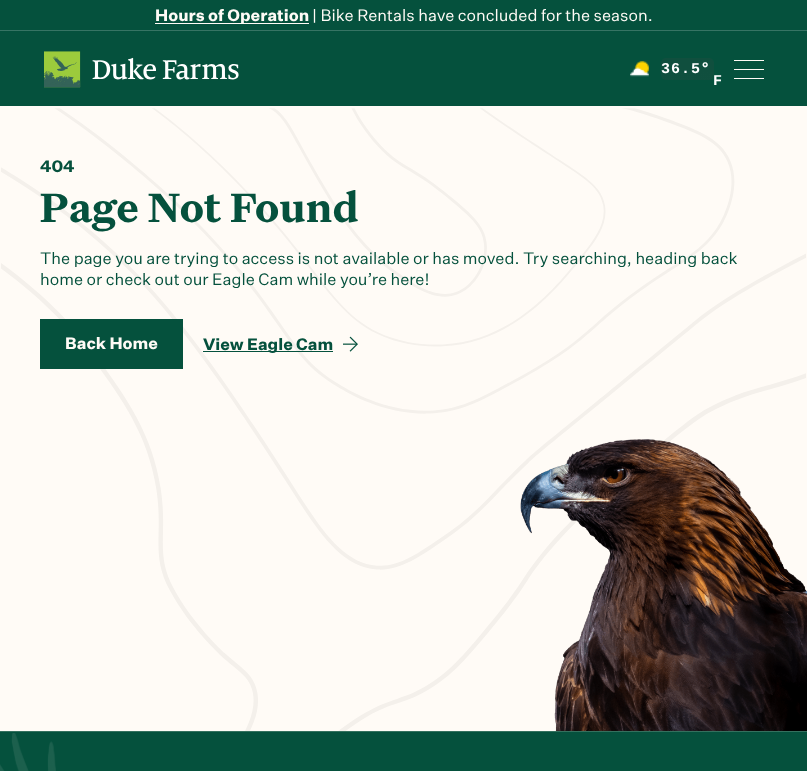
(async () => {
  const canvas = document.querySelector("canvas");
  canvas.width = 807;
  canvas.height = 771;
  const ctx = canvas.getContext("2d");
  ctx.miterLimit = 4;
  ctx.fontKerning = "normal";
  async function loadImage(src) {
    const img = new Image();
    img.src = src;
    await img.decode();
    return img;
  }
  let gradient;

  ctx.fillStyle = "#fffbf6";
  ctx.fillRect(0, 0, 807, 771);
  for (const [x, y, w, h, color] of [
    [0, 0, 807, 30, "#05513d"],
    [0, 30, 807, 1, "#377464"],
    [155, 23, 154, 1, "#fffbf6"],
    [0, 31, 807, 75, "#05513d"],
  ]) {
    ctx.fillStyle = color;
    ctx.fillRect(x, y, w, h);
  }
  ctx.drawImage(await loadImage("img/1.png"), 44, 51, 195, 37);
  ctx.drawImage(await loadImage("img/2.png"), 630, 61, 19, 16);
  gradient = ctx.createLinearGradient(688, 58, 688, 307);
  gradient.addColorStop(0.05, "#104f3e");
  gradient.addColorStop(1, "#1a5847");
  ctx.fillStyle = gradient;
  ctx.beginPath();
  ctx.roundRect(661, 58, 53, 22, 5);
  ctx.fill();
  for (const [x, y, w, h, color] of [
    [734, 60, 30, 1, "#fffbf6"],
    [734, 69, 30, 1, "#fffbf6"],
    [734, 78, 30, 1, "#fffbf6"],
  ]) {
    ctx.fillStyle = color;
    ctx.fillRect(x, y, w, h);
  }
  ctx.drawImage(await loadImage("img/3.png"), 1, 108, 805, 623);
  ctx.fillStyle = "#05513d";
  ctx.fillRect(40, 319, 143, 50);
  ctx.fillRect(203, 351, 130, 1);
  ctx.drawImage(await loadImage("img/4.png"), 343, 336, 15, 16);
  ctx.drawImage(await loadImage("img/5.png"), 520, 439, 287, 292);
  ctx.fillRect(0, 732, 807, 39);
  ctx.fillStyle = "#34705e";
  ctx.fillRect(0, 731, 807, 1);
  ctx.drawImage(await loadImage("img/6.png"), 0, 733, 56, 38);
  ctx.font = "bold 16.25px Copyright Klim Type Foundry";
  ctx.fillStyle = "#fffbf6";
  ctx.fillText("Hours of Operation", 155, 21);
  ctx.font = "16.25px Copyright Klim Type Foundry";
  ctx.fillText("| Bike Rentals have concluded for the season.", 312, 21);
  ctx.letterSpacing = "1px";
  ctx.font = "bold 15px Liberation Mono";
  ctx.fillStyle = "#ffffff";
  ctx.fillText("36.5", 661, 73);
  ctx.font = "bold 15px Noto Sans";
  ctx.fillText("°", 702, 73);
  ctx.font = "bold 15px Liberation Mono";
  ctx.fillText("F", 713, 85);
  ctx.letterSpacing = "0px";
  ctx.font = "bold 16.25px Copyright Klim Type Foundry";
  ctx.fillStyle = "#05513d";
  ctx.fillText("404", 40, 172);
  ctx.font = "bold 43.75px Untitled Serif";
  ctx.fillText("Page Not Found", 40, 222);
  ctx.font = "16.25px Copyright Klim Type Foundry";
  ctx.fillText("The page you are trying to access is not available or has moved. Try searching, heading back", 40, 264);
  ctx.fillText("home or check out our Eagle Cam while you’re here!", 40, 285);
  ctx.font = "bold 16.25px Copyright Klim Type Foundry";
  ctx.fillStyle = "#fffbf6";
  ctx.fillText("Back Home", 65, 349);
  ctx.fillStyle = "#05513d";
  ctx.fillText("View Eagle Cam", 203, 350);
})();
